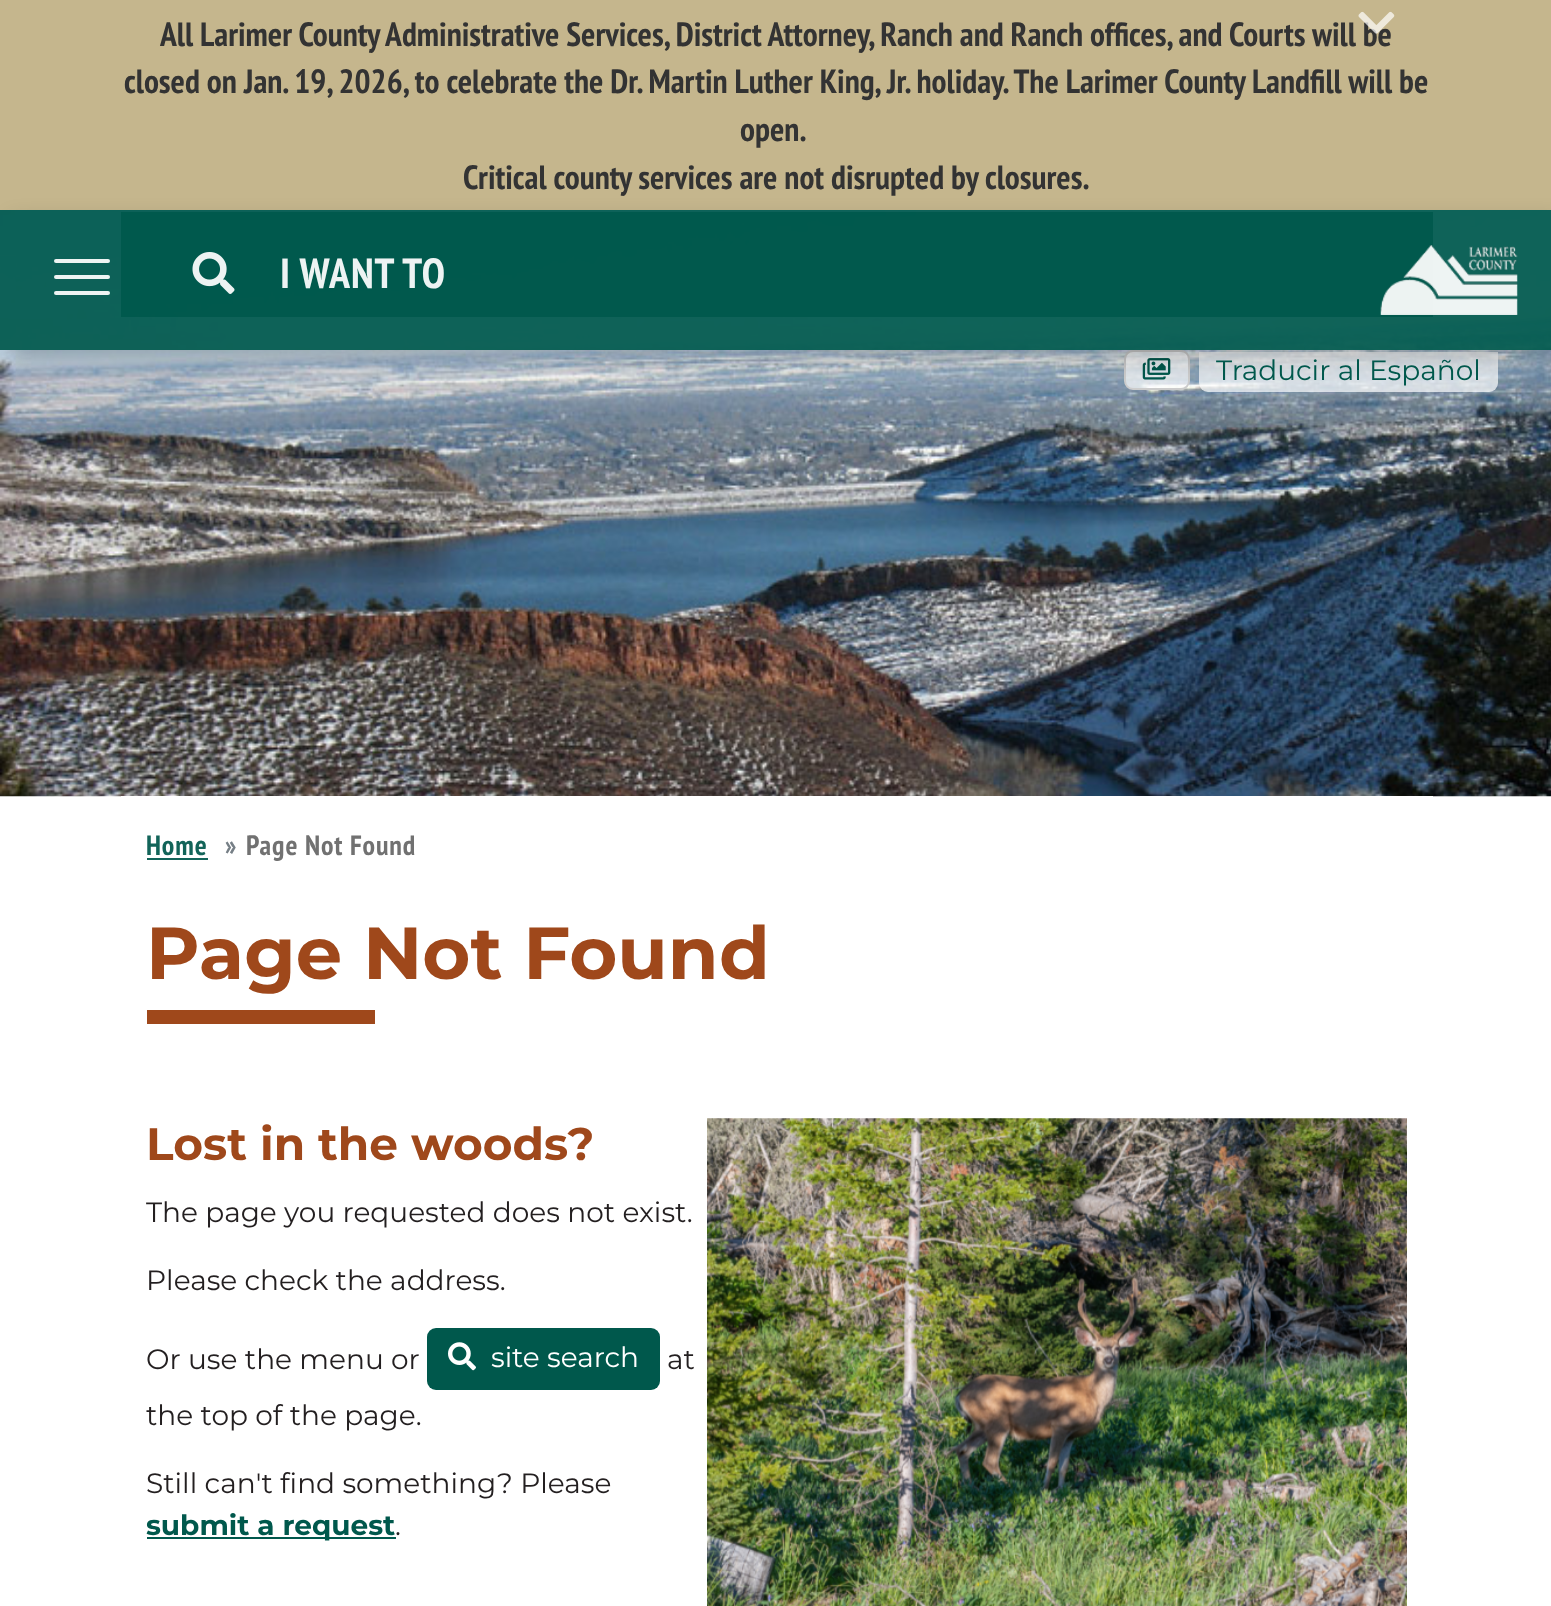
(async () => {
  const canvas = document.querySelector("canvas");
  canvas.width = 1551;
  canvas.height = 1606;
  const ctx = canvas.getContext("2d");
  ctx.miterLimit = 4;
  ctx.fontKerning = "normal";
  async function loadImage(src) {
    const img = new Image();
    img.src = src;
    await img.decode();
    return img;
  }
  let path;

  ctx.fillStyle = "#ffffff";
  ctx.fillRect(0, 0, 1551, 1606);
  ctx.fillStyle = "#c5b68d";
  ctx.fillRect(0, 0, 1551, 210);
  ctx.drawImage(await loadImage("img/2.png"), 0, 210, 1551, 587);
  ctx.fillStyle = "rgba(255, 255, 255, 0.7)";
  ctx.beginPath();
  ctx.roundRect(1125, 351, 64, 38, 8);
  ctx.fill();
  ctx.strokeStyle = "#cccccc";
  ctx.lineWidth = 2;
  ctx.stroke();
  ctx.drawImage(await loadImage("img/5.png"), 1142, 358, 29, 22);
  ctx.beginPath();
  ctx.roundRect(1199, 352, 299, 40, [0, 0, 9, 9]);
  ctx.fill();
  ctx.save();
  path = new Path2D("M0 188H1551V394H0ZM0 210H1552V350H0Z");
  ctx.clip(path, "evenodd");
  ctx.fillStyle = "rgba(0, 0, 0, 0.23)";
  ctx.filter = "blur(10.5px)";
  ctx.beginPath();
  ctx.rect(11, 221, 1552, 140);
  ctx.fill();
  ctx.filter = "none";
  ctx.restore();
  ctx.fillStyle = "rgba(0, 88, 76, 0.93)";
  ctx.fillRect(0, 210, 1551, 140);
  ctx.fillRect(121, 212, 1312, 105);
  ctx.fillStyle = "#eef4f3";
  ctx.beginPath();
  ctx.roundRect(54, 259, 56, 4, 2);
  ctx.fill();
  ctx.beginPath();
  ctx.roundRect(54, 275, 56, 4, 2);
  ctx.fill();
  ctx.beginPath();
  ctx.roundRect(54, 291, 56, 4, 2);
  ctx.fill();
  ctx.drawImage(await loadImage("img/3.png"), 192, 252, 43, 42);
  ctx.drawImage(await loadImage("img/4.png"), 1380, 245, 138, 70);
  for (const [x, y, w, h, color] of [
    [121, 796, 1312, 1, "#ffffff"],
    [147, 858, 61, 2, "#126459"],
    [147, 1010, 228, 14, "#9f481b"],
  ]) {
    ctx.fillStyle = color;
    ctx.fillRect(x, y, w, h);
  }
  ctx.drawImage(await loadImage("img/6.png"), 707, 1118, 700, 488);
  ctx.fillStyle = "#00584c";
  ctx.beginPath();
  ctx.roundRect(427, 1328, 233, 62, 9);
  ctx.fill();
  ctx.drawImage(await loadImage("img/7.png"), 448, 1342, 28, 29);
  ctx.fillRect(147, 1537, 249, 2);
  ctx.font = "bold 33.6px PT Sans Narrow";
  ctx.fillStyle = "#333333";
  ctx.fillText("All Larimer County Administrative Services, District Attorney, Ranch and Ranch offices, and Courts will be", 160, 46);
  ctx.drawImage(await loadImage("img/1.png"), 1358, 11, 37, 23);
  for (const [text, x, y] of [
    ["closed on Jan. 19, 2026, to celebrate the Dr. Martin Luther King, Jr. holiday. The Larimer County Landfill will be", 124, 93],
    ["open.", 740, 141],
    ["Critical county services are not disrupted by closures.", 463, 189],
  ]) {
    ctx.fillText(text, x, y);
  }
  ctx.letterSpacing = "0.9px";
  ctx.font = "bold 42px PT Sans Narrow";
  ctx.fillStyle = "#edf3f3";
  ctx.fillText("I WANT TO", 280, 288);
  ctx.letterSpacing = "0px";
  ctx.font = "28px Montserrat";
  ctx.fillStyle = "#00584c";
  ctx.fillText("Traducir al Español", 1216, 380);
  ctx.letterSpacing = "0.9px";
  ctx.font = "bold 28px PT Sans Narrow";
  ctx.fillStyle = "#126459";
  ctx.fillText("Home", 146, 855);
  ctx.fillStyle = "#767f86";
  ctx.fillText("»", 225, 855);
  ctx.fillStyle = "#717171";
  ctx.fillText("Page Not Found", 246, 855);
  ctx.letterSpacing = "0px";
  ctx.font = "bold 73.5px Montserrat";
  ctx.fillStyle = "#9f481b";
  ctx.fillText("Page Not Found", 146, 979);
  ctx.font = "bold 45.5px Montserrat";
  ctx.fillText("Lost in the woods?", 146, 1160);
  ctx.font = "28px Montserrat";
  ctx.fillStyle = "#231f20";
  for (const [text, x, y] of [
    ["The page you requested does not exist.", 146, 1222],
    ["Please check the address.", 146, 1290],
    ["Or use the menu or", 146, 1369],
  ]) {
    ctx.fillText(text, x, y);
  }
  ctx.fillStyle = "#ffffff";
  ctx.fillText("site search", 491, 1367);
  ctx.fillStyle = "#231f20";
  for (const [text, x, y] of [
    ["at", 667, 1369],
    ["the top of the page.", 146, 1425],
    ["Still can't find something? Please", 146, 1493],
  ]) {
    ctx.fillText(text, x, y);
  }
  ctx.font = "bold 28px Montserrat";
  ctx.fillStyle = "#00584c";
  ctx.fillText("submit a request", 146, 1535);
  ctx.font = "28px Montserrat";
  ctx.fillStyle = "#231f20";
  ctx.fillText(".", 395, 1535);
})();
